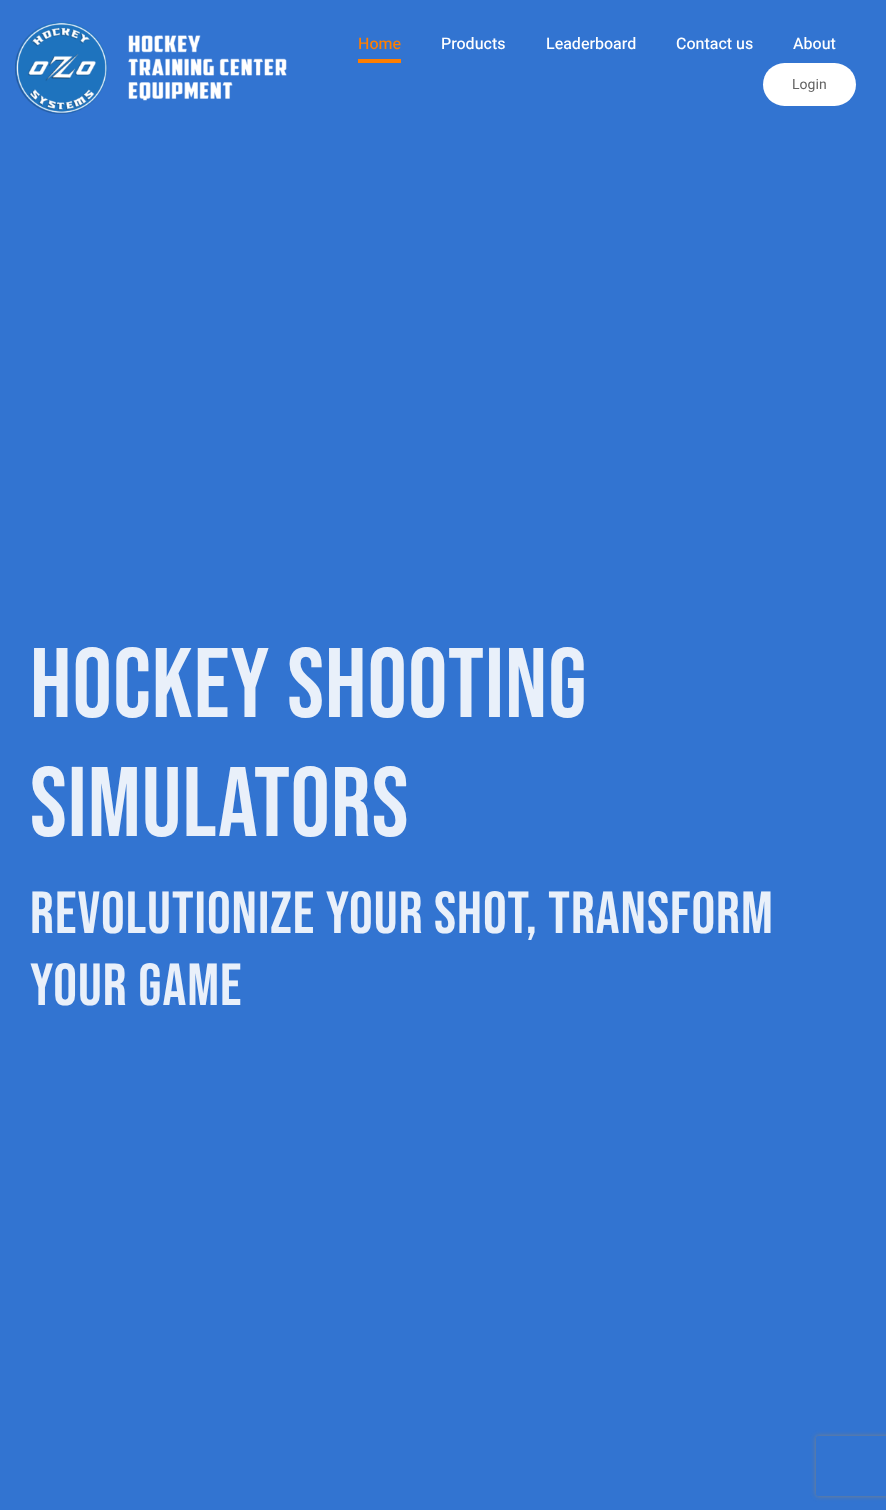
(async () => {
  const canvas = document.querySelector("canvas");
  canvas.width = 886;
  canvas.height = 1510;
  const ctx = canvas.getContext("2d");
  ctx.miterLimit = 4;
  ctx.fontKerning = "normal";
  async function loadImage(src) {
    const img = new Image();
    img.src = src;
    await img.decode();
    return img;
  }
  let path;

  ctx.fillStyle = "#3274d1";
  ctx.fillRect(0, 0, 886, 1510);
  ctx.drawImage(await loadImage("img/1.png"), 15, 22, 272, 92);
  ctx.fillStyle = "#ff7e00";
  ctx.fillRect(358, 59, 43, 4);
  ctx.fillStyle = "#ffffff";
  ctx.beginPath();
  ctx.roundRect(763, 63, 93, 43, 21.5);
  ctx.fill();
  ctx.save();
  path = new Path2D("M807 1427H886V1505H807ZM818 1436H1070C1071 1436 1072 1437 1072 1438V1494C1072 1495 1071 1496 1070 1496H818C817 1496 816 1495 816 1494V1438C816 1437 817 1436 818 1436Z");
  ctx.clip(path, "evenodd");
  ctx.fillStyle = "#808080";
  ctx.filter = "blur(2.5px)";
  ctx.beginPath();
  ctx.roundRect(816, 1436, 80, 60, 2);
  ctx.fill();
  ctx.filter = "none";
  ctx.restore();
  ctx.font = "500 16px Heebo";
  ctx.fillStyle = "#ff7e00";
  ctx.fillText("Home", 358, 49);
  ctx.fillStyle = "#ffffff";
  for (const [text, x, y] of [
    ["Products", 441, 49],
    ["Leaderboard", 546, 49],
    ["Contact us", 676, 49],
    ["About", 793, 49],
  ]) {
    ctx.fillText(text, x, y);
  }
  ctx.font = "14px Heebo";
  ctx.fillStyle = "#636363";
  ctx.fillText("Login", 792, 89);
  ctx.letterSpacing = "1px";
  ctx.font = "98.75px Bebas Neue";
  ctx.fillStyle = "#e9f0fa";
  ctx.fillText("Hockey Shooting", 30, 717);
  ctx.fillText("Simulators", 30, 836);
  ctx.font = "59.3px Bebas Neue";
  ctx.fillText("Revolutionize Your Shot, Transform", 30, 933);
  ctx.fillText("Your Game", 30, 1005);
})();
